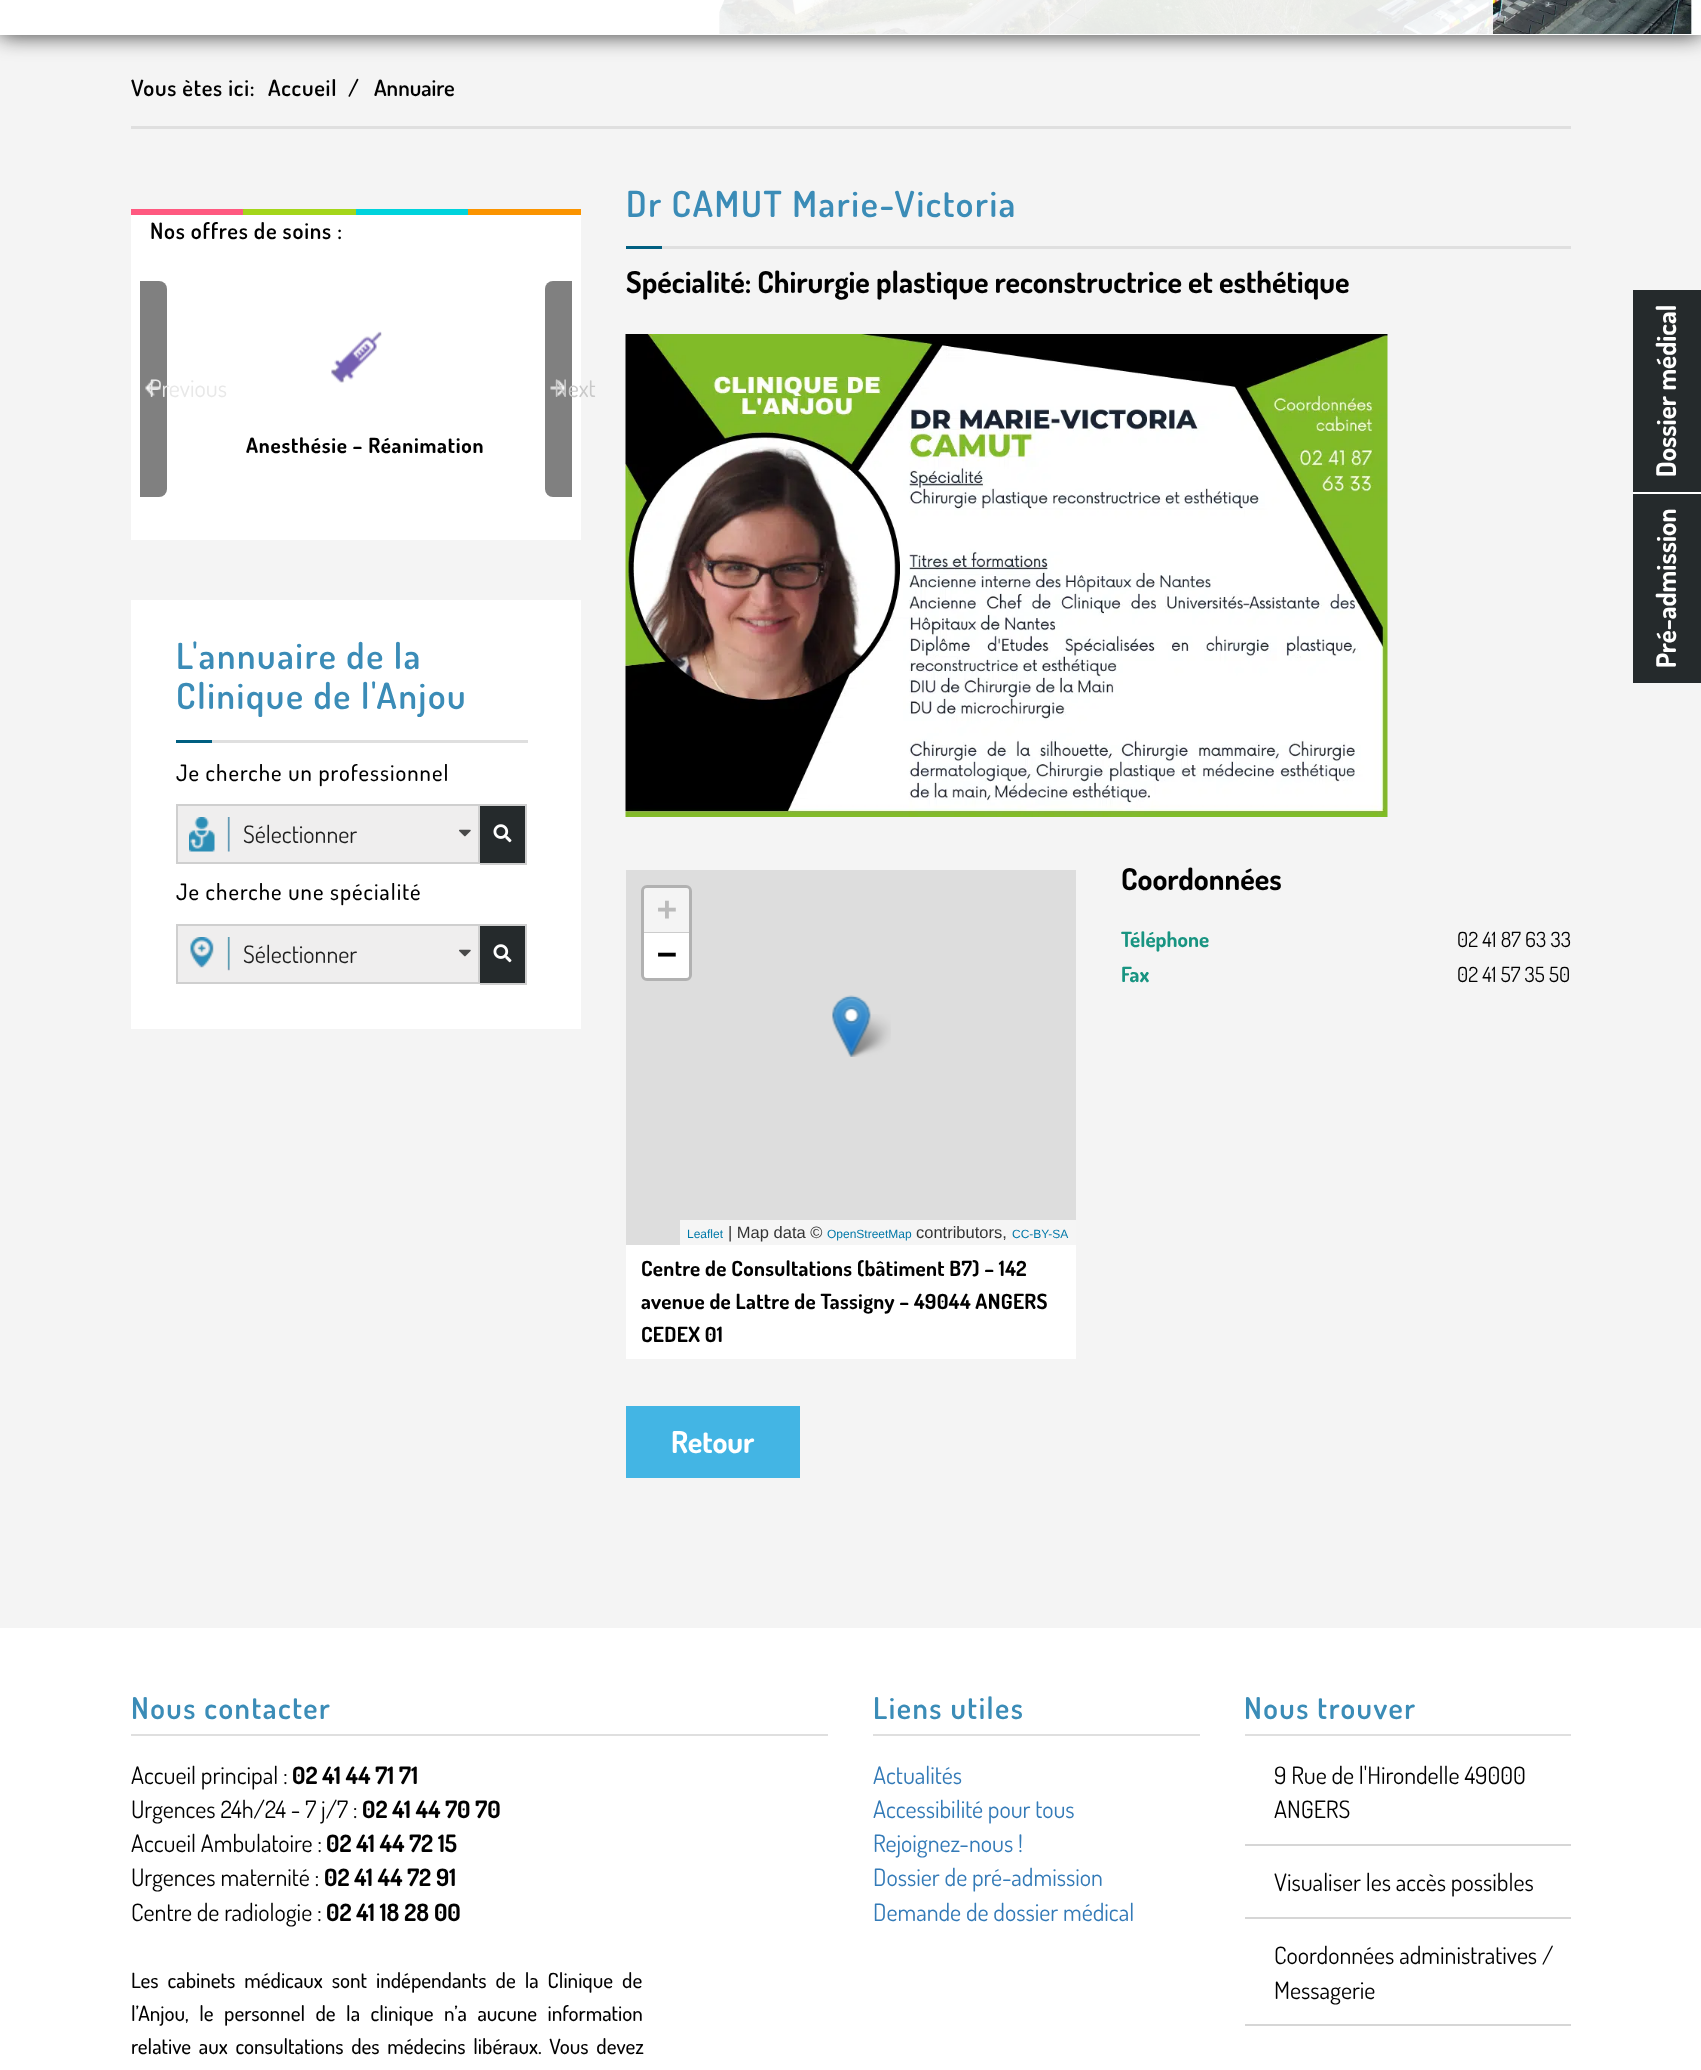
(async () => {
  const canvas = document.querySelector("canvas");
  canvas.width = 1701;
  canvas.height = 2070;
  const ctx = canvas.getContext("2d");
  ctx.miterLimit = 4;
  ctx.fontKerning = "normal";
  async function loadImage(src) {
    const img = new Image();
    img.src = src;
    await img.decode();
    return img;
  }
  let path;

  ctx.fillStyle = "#f4f4f4";
  ctx.fillRect(0, 0, 1701, 2070);
  for (const [x, y, w, h, color] of [
    [131, 126, 1440, 3, "#dfdfdf"],
    [131, 215, 450, 325, "#ffffff"],
    [131, 209, 112, 6, "#ff5980"],
    [243, 209, 113, 6, "#a4d61a"],
    [356, 209, 112, 6, "#00d3dc"],
    [468, 209, 113, 6, "#fb9400"],
  ]) {
    ctx.fillStyle = color;
    ctx.fillRect(x, y, w, h);
  }
  ctx.fillStyle = "#808080";
  ctx.beginPath();
  ctx.roundRect(140, 281, 27, 216, [0, 8, 8, 0]);
  ctx.fill();
  ctx.drawImage(await loadImage("img/1.png"), 145, 380, 16, 16);
  ctx.beginPath();
  ctx.roundRect(545, 281, 27, 216, [8, 0, 0, 8]);
  ctx.fill();
  ctx.drawImage(await loadImage("img/2.png"), 550, 380, 16, 16);
  ctx.drawImage(await loadImage("img/3.png"), 331, 331, 51, 52);
  for (const [x, y, w, h, color] of [
    [131, 600, 450, 429, "#ffffff"],
    [212, 740, 316, 3, "#dfdfdf"],
    [176, 740, 36, 3, "#005f81"],
  ]) {
    ctx.fillStyle = color;
    ctx.fillRect(x, y, w, h);
  }
  ctx.fillStyle = "#efeeee";
  ctx.beginPath();
  ctx.rect(177, 805, 302, 58);
  ctx.fill();
  ctx.strokeStyle = "#cfcfcf";
  ctx.lineWidth = 2;
  ctx.stroke();
  ctx.drawImage(await loadImage("img/4.png"), 189, 817, 41, 35);
  ctx.drawImage(await loadImage("img/5.png"), 459, 829, 12, 8);
  for (const [x, y, w, h, color] of [
    [480, 806, 45, 57, "#252a2c"],
    [480, 804, 47, 2, "#cfcfcf"],
    [525, 804, 2, 60, "#cfcfcf"],
    [480, 863, 47, 2, "#cfcfcf"],
  ]) {
    ctx.fillStyle = color;
    ctx.fillRect(x, y, w, h);
  }
  ctx.drawImage(await loadImage("img/6.png"), 493, 824, 19, 19);
  ctx.fillStyle = "#efeeee";
  ctx.beginPath();
  ctx.rect(177, 925, 302, 58);
  ctx.fill();
  ctx.stroke();
  ctx.drawImage(await loadImage("img/7.png"), 190, 937, 40, 34);
  ctx.drawImage(await loadImage("img/5.png"), 459, 949, 12, 8);
  for (const [x, y, w, h, color] of [
    [480, 926, 45, 57, "#252a2c"],
    [480, 924, 47, 2, "#cfcfcf"],
    [525, 924, 2, 60, "#cfcfcf"],
    [480, 983, 47, 2, "#cfcfcf"],
  ]) {
    ctx.fillStyle = color;
    ctx.fillRect(x, y, w, h);
  }
  ctx.drawImage(await loadImage("img/6.png"), 493, 944, 19, 19);
  ctx.fillStyle = "#dfdfdf";
  ctx.fillRect(662, 246, 909, 3);
  ctx.fillStyle = "#005f81";
  ctx.fillRect(626, 246, 36, 3);
  ctx.drawImage(await loadImage("img/8.png"), 625, 334, 763, 483);
  ctx.fillStyle = "#dddddd";
  ctx.fillRect(626, 870, 450, 375);
  ctx.beginPath();
  ctx.roundRect(642.5, 886.5, 48, 93, 4.5);
  ctx.strokeStyle = "#b1b1b1";
  ctx.lineWidth = 3;
  ctx.stroke();
  ctx.fillStyle = "#f4f4f4";
  ctx.beginPath();
  ctx.roundRect(644, 888, 45, 45, [3, 3, 0, 0]);
  ctx.fill();
  ctx.fillStyle = "#cccccc";
  ctx.fillRect(644, 932, 45, 1);
  ctx.fillStyle = "#ffffff";
  ctx.beginPath();
  ctx.roundRect(644, 933, 45, 45, [0, 0, 3, 3]);
  ctx.fill();
  ctx.fillStyle = "#f5f5f5";
  ctx.fillRect(680, 1220, 396, 25);
  ctx.drawImage(await loadImage("img/10.png"), 846, 1014, 45, 43);
  ctx.drawImage(await loadImage("img/9.png"), 832, 995, 39, 62);
  ctx.fillStyle = "#ffffff";
  ctx.fillRect(626, 1245, 450, 114);
  ctx.fillStyle = "#43b5e4";
  ctx.fillRect(626, 1406, 174, 72);
  ctx.fillStyle = "#333333";
  ctx.filter = "blur(11px)";
  ctx.beginPath();
  ctx.rect(0, -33, 1701, 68);
  ctx.fill();
  ctx.filter = "none";
  ctx.fillStyle = "#ffffff";
  ctx.fillRect(0, 0, 1701, 35);
  ctx.drawImage(await loadImage("img/11.png"), 718, 0, 983, 34);
  path = new Path2D("M710-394H890L710 34Z");
  ctx.fill(path);
  for (const [x, y, w, h, color] of [
    [718, 0, 775, 34, "rgba(255, 255, 255, 0.9)"],
    [1633, 290, 68, 202, "#252a2c"],
    [1633, 492, 68, 2, "#ffffff"],
    [1633, 494, 68, 189, "#252a2c"],
    [0, 1628, 1701, 442, "#ffffff"],
    [131, 1734, 697, 2, "#dfdfdf"],
    [873, 1734, 327, 2, "#dfdfdf"],
    [1245, 1734, 326, 2, "#dfdfdf"],
    [1245, 1844, 326, 2, "#d6d6d6"],
    [1245, 1917, 326, 2, "#d6d6d6"],
    [1245, 2024, 326, 2, "#d6d6d6"],
  ]) {
    ctx.fillStyle = color;
    ctx.fillRect(x, y, w, h);
  }
  ctx.letterSpacing = "0.75px";
  ctx.font = "600 22.5px Dosis";
  ctx.fillStyle = "#010101";
  ctx.fillText("Vous ètes ici:", 131, 96);
  ctx.fillText("Accueil", 268, 96);
  ctx.letterSpacing = "0px";
  ctx.fillText("/", 348, 96);
  ctx.fillText("Annuaire", 374, 96);
  ctx.letterSpacing = "0.75px";
  ctx.fillText("Nos offres de soins :", 150, 239);
  ctx.letterSpacing = "0px";
  ctx.font = "24px Dosis";
  ctx.fillStyle = "#e8e8e8";
  ctx.fillText("Previous", 149, 397);
  ctx.fillStyle = "#c9c9c9";
  ctx.fillText("Next", 554, 397);
  ctx.letterSpacing = "0.75px";
  ctx.font = "bold 21px Dosis";
  ctx.fillStyle = "#010101";
  ctx.fillText("Anesthésie – Réanimation", 246, 453);
  ctx.letterSpacing = "1.65px";
  ctx.font = "600 36px Dosis";
  ctx.fillStyle = "#3b8cb7";
  ctx.fillText("L'annuaire de la", 176, 669);
  ctx.fillText("Clinique de l'Anjou", 176, 709);
  ctx.letterSpacing = "1.05px";
  ctx.font = "500 22.5px Dosis";
  ctx.fillStyle = "#010101";
  ctx.fillText("Je cherche un professionnel", 176, 781);
  ctx.letterSpacing = "0px";
  ctx.font = "24px Dosis";
  ctx.fillStyle = "#1f1f1f";
  ctx.fillText("Sélectionner", 243, 843);
  ctx.letterSpacing = "1.05px";
  ctx.font = "500 22.5px Dosis";
  ctx.fillStyle = "#010101";
  ctx.fillText("Je cherche une spécialité", 176, 900);
  ctx.letterSpacing = "0px";
  ctx.font = "24px Dosis";
  ctx.fillStyle = "#1f1f1f";
  ctx.fillText("Sélectionner", 243, 963);
  ctx.letterSpacing = "1.65px";
  ctx.font = "600 36px Dosis";
  ctx.fillStyle = "#3b8cb7";
  ctx.fillText("Dr CAMUT Marie-Victoria", 626, 217);
  ctx.letterSpacing = "0px";
  ctx.font = "bold 30px Dosis";
  ctx.fillStyle = "#010101";
  ctx.fillText("Spécialité: Chirurgie plastique reconstructrice et esthétique", 626, 293);
  ctx.font = "bold 33px DejaVu Sans Mono";
  ctx.fillStyle = "#bbbbbb";
  ctx.fillText("+", 657, 920);
  ctx.fillStyle = "#010101";
  ctx.fillText("−", 657, 965);
  ctx.font = "12px Liberation Sans";
  ctx.fillStyle = "#0078a8";
  ctx.fillText("Leaflet", 687, 1238);
  ctx.font = "16.5px Liberation Sans";
  ctx.fillStyle = "#333333";
  ctx.fillText("| Map data ©", 728, 1238);
  ctx.font = "12px Liberation Sans";
  ctx.fillStyle = "#0078a8";
  ctx.fillText("OpenStreetMap", 827, 1238);
  ctx.font = "16.5px Liberation Sans";
  ctx.fillStyle = "#333333";
  ctx.fillText("contributors,", 916, 1238);
  ctx.font = "12px Liberation Sans";
  ctx.fillStyle = "#0078a8";
  ctx.fillText("CC-BY-SA", 1012, 1238);
  ctx.letterSpacing = "0.3px";
  ctx.font = "bold 21px Dosis";
  ctx.fillStyle = "#010101";
  for (const [text, x, y] of [
    ["Centre de Consultations (bâtiment B7) – 142", 641, 1276],
    ["avenue de Lattre de Tassigny – 49044 ANGERS", 641, 1309],
    ["CEDEX 01", 641, 1342],
  ]) {
    ctx.fillText(text, x, y);
  }
  ctx.letterSpacing = "0px";
  ctx.font = "bold 30px Dosis";
  ctx.fillText("Coordonnées", 1121, 890);
  ctx.font = "bold 21px Dosis";
  ctx.fillStyle = "#189481";
  ctx.fillText("Téléphone", 1121, 947);
  ctx.font = "21px Dosis";
  ctx.fillStyle = "#010101";
  ctx.fillText("02 41 87 63 33", 1457, 947);
  ctx.font = "bold 21px Dosis";
  ctx.fillStyle = "#189481";
  ctx.fillText("Fax", 1121, 982);
  ctx.font = "21px Dosis";
  ctx.fillStyle = "#010101";
  ctx.fillText("02 41 57 35 50", 1457, 982);
  ctx.font = "bold 30px Dosis";
  ctx.fillStyle = "#ffffff";
  ctx.fillText("Retour", 671, 1453);
  ctx.font = "bold 27px Dosis";
  ctx.save();
  ctx.translate(1676, 477);
  ctx.rotate(-90 * Math.PI / 180);
  ctx.fillText("Dossier médical", 0, 0);
  ctx.restore();
  ctx.save();
  ctx.translate(1676, 668);
  ctx.rotate(-90 * Math.PI / 180);
  ctx.fillText("Pré-admission", 0, 0);
  ctx.restore();
  ctx.letterSpacing = "1.5px";
  ctx.font = "600 30px Dosis";
  ctx.fillStyle = "#3b8cb7";
  ctx.fillText("Nous contacter", 131, 1719);
  ctx.letterSpacing = "0px";
  ctx.font = "24px Dosis";
  ctx.fillStyle = "#010101";
  ctx.fillText("Accueil principal :", 131, 1784);
  ctx.font = "bold 24px Dosis";
  ctx.fillText("02 41 44 71 71", 292, 1784);
  ctx.font = "24px Dosis";
  ctx.fillText("Urgences 24h/24 - 7 j/7 :", 131, 1818);
  ctx.font = "bold 24px Dosis";
  ctx.fillText("02 41 44 70 70", 362, 1818);
  ctx.font = "24px Dosis";
  ctx.fillText("Accueil Ambulatoire :", 131, 1852);
  ctx.font = "bold 24px Dosis";
  ctx.fillText("02 41 44 72 15", 326, 1852);
  ctx.font = "24px Dosis";
  ctx.fillText("Urgences maternité :", 131, 1886);
  ctx.font = "bold 24px Dosis";
  ctx.fillText("02 41 44 72 91", 324, 1886);
  ctx.font = "24px Dosis";
  ctx.fillText("Centre de radiologie :", 131, 1921);
  ctx.font = "bold 24px Dosis";
  ctx.fillText("02 41 18 28 00", 326, 1921);
  ctx.wordSpacing = "4.75px";
  ctx.font = "500 21px Dosis";
  ctx.fillText("Les cabinets médicaux sont indépendants de la Clinique de", 131, 1988);
  ctx.wordSpacing = "6.25px";
  ctx.fillText("l’Anjou, le personnel de la clinique n’a aucune information", 131, 2021);
  ctx.wordSpacing = "3.5px";
  ctx.fillText("relative aux consultations des médecins libéraux. Vous devez", 131, 2054);
  ctx.letterSpacing = "1.5px";
  ctx.wordSpacing = "0px";
  ctx.font = "600 30px Dosis";
  ctx.fillStyle = "#3b8cb7";
  ctx.fillText("Liens utiles", 873, 1719);
  ctx.letterSpacing = "0px";
  ctx.font = "24px Dosis";
  ctx.fillStyle = "#337ab7";
  for (const [text, x, y] of [
    ["Actualités", 873, 1784],
    ["Accessibilité pour tous", 873, 1818],
    ["Rejoignez-nous !", 873, 1852],
    ["Dossier de pré-admission", 873, 1886],
    ["Demande de dossier médical", 873, 1921],
  ]) {
    ctx.fillText(text, x, y);
  }
  ctx.letterSpacing = "1.5px";
  ctx.font = "600 30px Dosis";
  ctx.fillStyle = "#3b8cb7";
  ctx.fillText("Nous trouver", 1244, 1719);
  ctx.letterSpacing = "0px";
  ctx.font = "24px Dosis";
  ctx.fillStyle = "#010101";
  for (const [text, x, y] of [
    ["9 Rue de l'Hirondelle 49000", 1274, 1784],
    ["ANGERS", 1274, 1818],
    ["Visualiser les accès possibles", 1274, 1891],
    ["Coordonnées administratives /", 1274, 1964],
    ["Messagerie", 1274, 1999],
  ]) {
    ctx.fillText(text, x, y);
  }
})();
